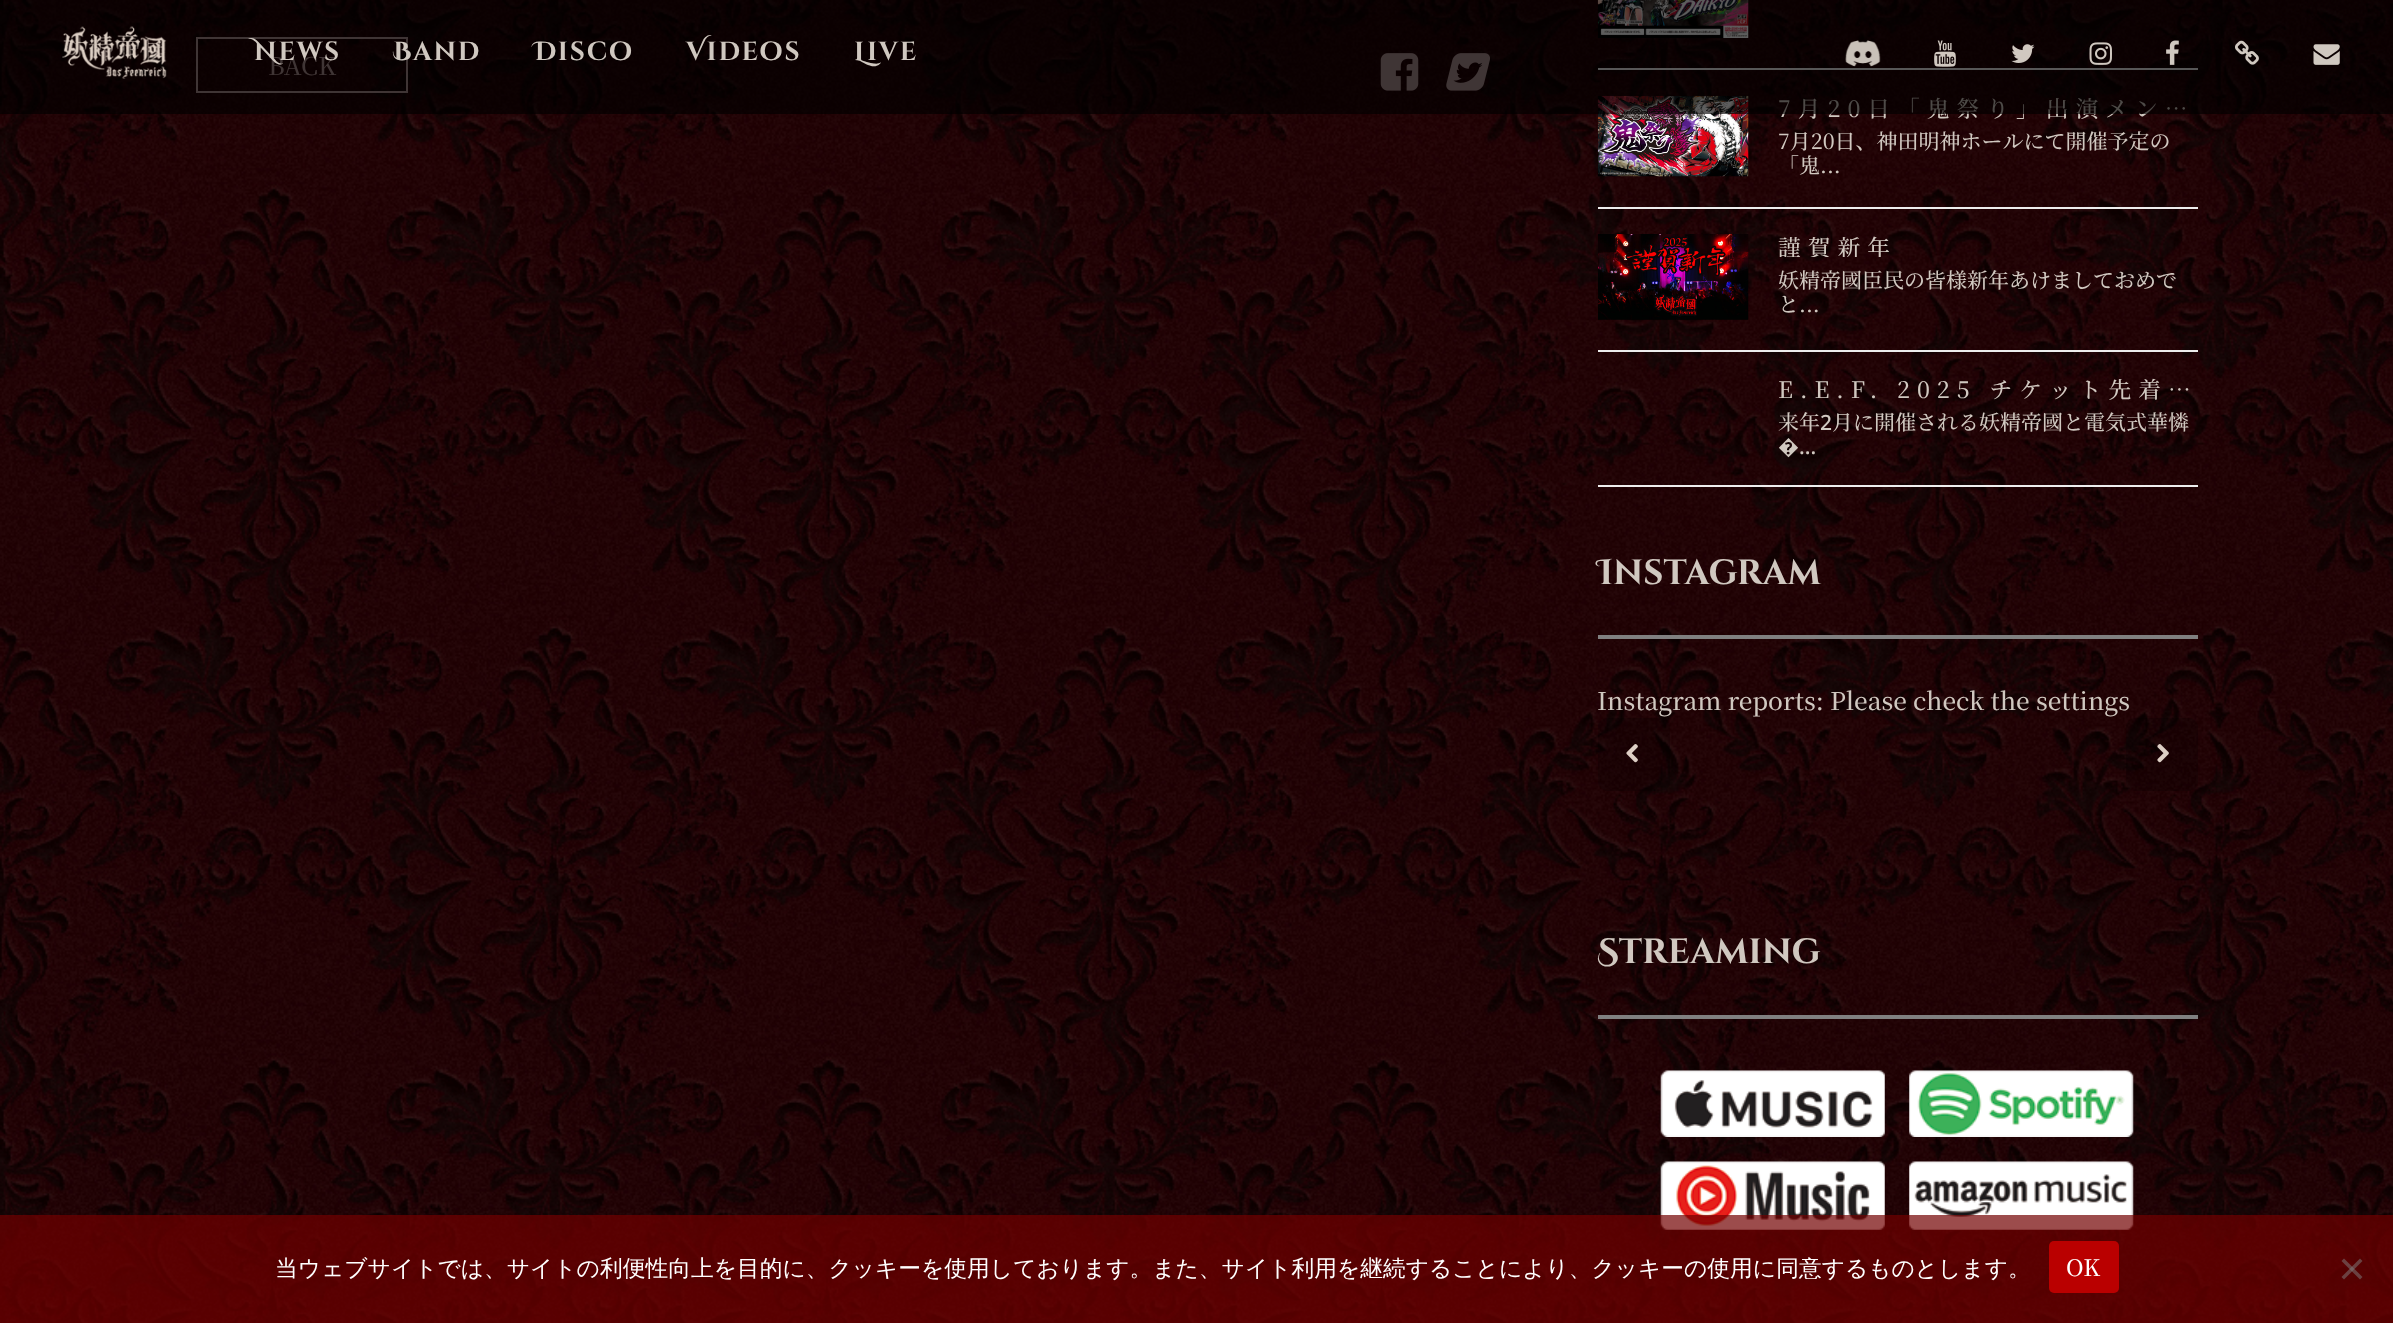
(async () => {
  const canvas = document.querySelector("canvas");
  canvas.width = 2393;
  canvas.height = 1323;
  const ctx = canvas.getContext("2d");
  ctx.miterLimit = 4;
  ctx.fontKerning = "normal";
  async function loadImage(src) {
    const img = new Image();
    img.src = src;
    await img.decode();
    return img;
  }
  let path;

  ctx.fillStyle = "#ffffff";
  ctx.fillRect(0, 0, 2393, 1323);
  ctx.drawImage(await loadImage("img/1.png"), 0, 0, 2393, 1323);
  ctx.strokeStyle = "#ac9090";
  ctx.lineWidth = 2;
  ctx.strokeRect(197, 38, 210, 54);
  ctx.drawImage(await loadImage("img/10.png"), 1380, 53, 39, 38);
  ctx.drawImage(await loadImage("img/11.png"), 1446, 53, 45, 38);
  ctx.drawImage(await loadImage("img/12.png"), 1597, 0, 152, 38);
  ctx.fillStyle = "#ededed";
  ctx.fillRect(1598, 68, 600, 2);
  ctx.drawImage(await loadImage("img/13.png"), 1597, 95, 152, 82);
  ctx.fillRect(1598, 207, 600, 2);
  ctx.drawImage(await loadImage("img/14.png"), 1598, 234, 151, 86);
  for (const [x, y, w, h, color] of [
    [1598, 350, 600, 2, "#ededed"],
    [1598, 485, 600, 2, "#ededed"],
    [1598, 635, 600, 4, "#808080"],
  ]) {
    ctx.fillStyle = color;
    ctx.fillRect(x, y, w, h);
  }
  ctx.fillStyle = "rgba(0, 0, 0, 0.2)";
  ctx.beginPath();
  ctx.roundRect(1598, 718, 72, 73, 9);
  ctx.fill();
  ctx.drawImage(await loadImage("img/15.png"), 1626, 744, 12, 19);
  ctx.beginPath();
  ctx.roundRect(2126, 718, 72, 73, 9);
  ctx.fill();
  ctx.drawImage(await loadImage("img/16.png"), 2157, 744, 12, 19);
  ctx.fillStyle = "#808080";
  ctx.fillRect(1598, 1015, 600, 4);
  ctx.drawImage(await loadImage("img/17.png"), 1660, 1070, 225, 67);
  ctx.drawImage(await loadImage("img/18.png"), 1909, 1070, 225, 67);
  ctx.drawImage(await loadImage("img/19.png"), 1660, 1161, 225, 69);
  ctx.drawImage(await loadImage("img/20.png"), 1909, 1161, 225, 69);
  ctx.fillStyle = "rgba(114, 0, 0, 0.7)";
  ctx.fillRect(0, 1215, 2393, 108);
  ctx.fillStyle = "#ba0000";
  ctx.beginPath();
  ctx.roundRect(2049, 1241, 70, 52, 5);
  ctx.fill();
  ctx.fillStyle = "rgba(128, 128, 128, 0.5)";
  path = new Path2D("M2360 1258.5L2362.5 1261L2344 1279.5L2341.5 1277Z");
  ctx.fill(path);
  path = new Path2D("M2341.5 1261L2344 1258.5L2362.5 1277L2360 1279.5Z");
  ctx.fill(path);
  ctx.font = "500 24.5px Noto Serif JP";
  ctx.fillStyle = "#ac9090";
  ctx.fillText("BACK", 268, 75);
  ctx.letterSpacing = "7px";
  ctx.font = "500 22.75px Noto Serif JP";
  ctx.fillStyle = "#d0c8c0";
  ctx.fillText("7月20日「鬼祭り」出演メン…", 1778, 117);
  ctx.fillStyle = "rgba(0, 0, 0, 0.63)";
  ctx.fillRect(0, 0, 2393, 114);
  ctx.drawImage(await loadImage("img/3.png"), 1845, 40, 36, 27);
  ctx.drawImage(await loadImage("img/4.png"), 1934, 40, 22, 27);
  ctx.drawImage(await loadImage("img/5.png"), 2011, 44, 24, 19);
  ctx.drawImage(await loadImage("img/6.png"), 2089, 42, 23, 23);
  ctx.drawImage(await loadImage("img/7.png"), 2166, 40, 13, 25);
  ctx.drawImage(await loadImage("img/8.png"), 2235, 40, 24, 25);
  ctx.drawImage(await loadImage("img/9.png"), 2313, 44, 27, 21);
  ctx.letterSpacing = "1.75px";
  ctx.font = "bold 26.25px Cinzel Decorative";
  ctx.fillStyle = "#d0c8c0";
  for (const [text, x, y] of [
    ["Live", 854, 60],
    ["Videos", 686, 60],
    ["Disco", 534, 60],
    ["Band", 393, 60],
    ["News", 254, 60],
  ]) {
    ctx.fillText(text, x, y);
  }
  ctx.drawImage(await loadImage("img/2.png"), 62, 26, 105, 53);
  ctx.letterSpacing = "0px";
  ctx.font = "500 21px Noto Serif JP";
  ctx.fillText("7月20日、神田明神ホールにて開催予定の", 1778, 149);
  ctx.fillText("「鬼...", 1778, 173);
  ctx.save();
  ctx.beginPath();
  ctx.rect(1778, 235, 420, 22);
  ctx.clip();
  ctx.letterSpacing = "7px";
  ctx.font = "500 22.75px Noto Serif JP";
  ctx.fillText("謹賀新年", 1778, 256);
  ctx.restore();
  ctx.fillText("妖精帝國臣民の皆様新年あけましておめで", 1778, 288);
  ctx.fillText("と...", 1778, 312);
  ctx.letterSpacing = "7px";
  ctx.font = "500 22.75px Noto Serif JP";
  ctx.fillText("E.E.F. 2025 チケット先着…", 1778, 398);
  ctx.letterSpacing = "0px";
  ctx.font = "500 21px Noto Serif JP";
  ctx.fillText("来年", 1778, 430);
  ctx.font = "500 21px Noto Sans";
  ctx.fillText("2", 1820, 430);
  ctx.font = "500 21px Noto Serif JP";
  ctx.fillText("月に開催される妖精帝國と電気式華憐", 1832, 430);
  ctx.font = "500 21px Noto Sans";
  ctx.fillText("�...", 1778, 454);
  ctx.font = "bold 35px Cinzel Decorative";
  ctx.fillText("Instagram", 1597, 584);
  ctx.font = "500 24.5px Noto Serif JP";
  ctx.fillText("Instagram reports: Please check the settings", 1597, 710);
  ctx.font = "bold 35px Cinzel Decorative";
  ctx.fillText("Streaming", 1597, 963);
  ctx.font = "500 22.75px WenQuanYi Zen Hei";
  ctx.fillStyle = "#ffffff";
  ctx.fillText("当ウェブサイトでは、サイトの利便性向上を目的に、クッキーを使用しております。また、サイト利用を継続することにより、クッキーの使用に同意するものとします。", 275, 1276);
  ctx.font = "500 22.75px Noto Serif JP";
  ctx.fillText("OK", 2066, 1276);
})();
